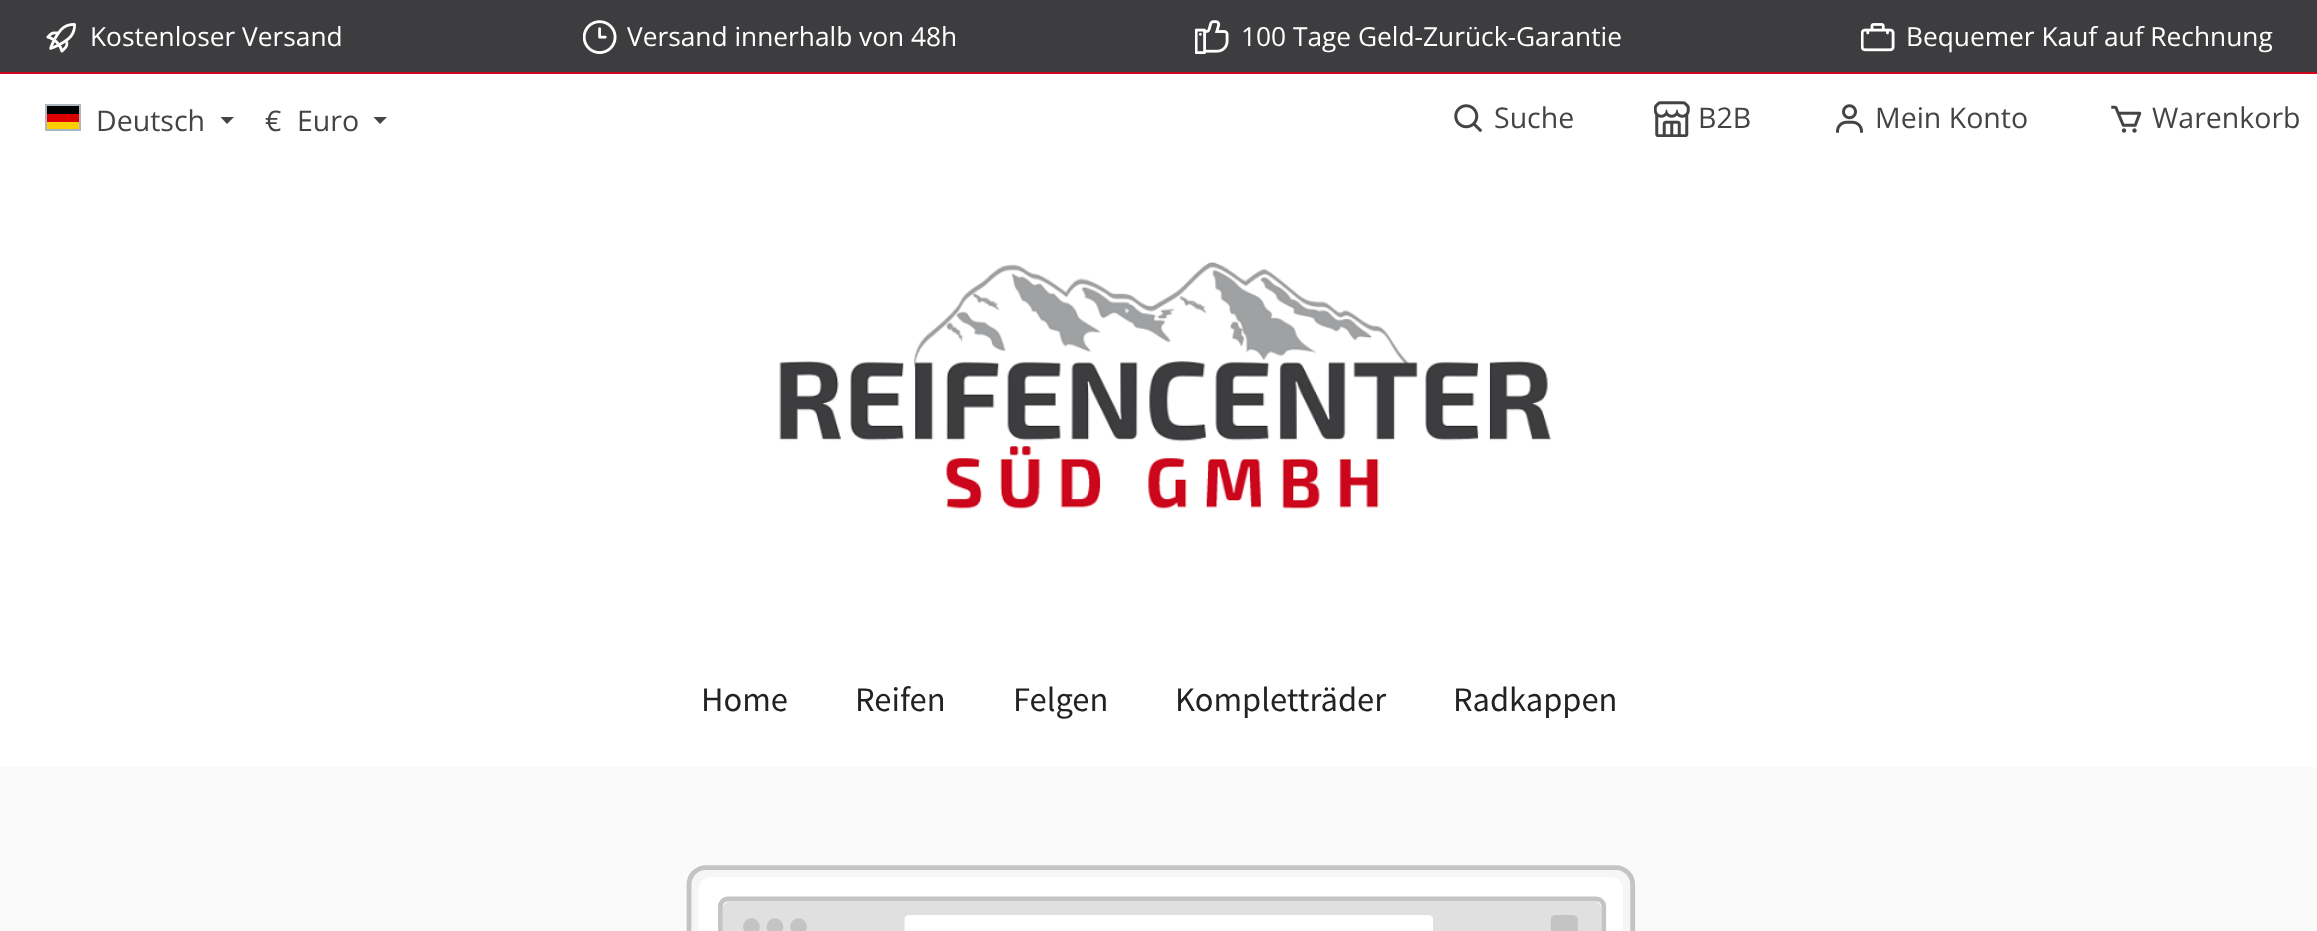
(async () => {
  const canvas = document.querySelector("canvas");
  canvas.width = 2317;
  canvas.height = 931;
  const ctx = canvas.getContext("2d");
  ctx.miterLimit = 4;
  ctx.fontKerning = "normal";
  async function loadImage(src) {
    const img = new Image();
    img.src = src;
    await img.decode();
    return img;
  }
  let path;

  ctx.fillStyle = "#fafafa";
  ctx.fillRect(0, 0, 2317, 931);
  ctx.fillStyle = "#3d3d3f";
  ctx.fillRect(0, 0, 2317, 72);
  ctx.fillStyle = "#cc071d";
  ctx.fillRect(0, 72, 2317, 2);
  ctx.drawImage(await loadImage("img/1.png"), 46, 23, 30, 30);
  ctx.drawImage(await loadImage("img/2.png"), 583, 20, 34, 34);
  ctx.drawImage(await loadImage("img/3.png"), 1195, 20, 34, 34);
  ctx.drawImage(await loadImage("img/4.png"), 1861, 23, 34, 29);
  for (const [x, y, w, h, color] of [
    [0, 74, 2317, 693, "#ffffff"],
    [47, 122, 32, 7, "#ffce00"],
    [47, 106, 32, 8, "#000000"],
    [47, 114, 32, 8, "#dd0000"],
  ]) {
    ctx.fillStyle = color;
    ctx.fillRect(x, y, w, h);
  }
  ctx.strokeStyle = "#adb5bd";
  ctx.lineWidth = 2;
  ctx.strokeRect(46, 105, 34, 25);
  ctx.fillStyle = "#444444";
  path = new Path2D("M220.5 117H234L227 124Z");
  ctx.fill(path);
  path = new Path2D("M373.5 117H387L380 124Z");
  ctx.fill(path);
  ctx.drawImage(await loadImage("img/5.png"), 1454, 104, 29, 29);
  ctx.drawImage(await loadImage("img/6.png"), 1654, 101, 36, 36);
  ctx.drawImage(await loadImage("img/7.png"), 1836, 104, 27, 29);
  ctx.drawImage(await loadImage("img/8.png"), 2111, 105, 31, 28);
  ctx.drawImage(await loadImage("img/9.png"), 779, 262, 773, 247);
  ctx.drawImage(await loadImage("img/10.png"), 686, 865, 950, 66);
  ctx.font = "26.3px Open Sans";
  ctx.fillStyle = "#ffffff";
  for (const [text, x, y] of [
    ["Kostenloser Versand", 90, 46],
    ["Versand innerhalb von 48h", 627, 46],
    ["100 Tage Geld-Zurück-Garantie", 1241, 46],
    ["Bequemer Kauf auf Rechnung", 1906, 46],
  ]) {
    ctx.fillText(text, x, y);
  }
  ctx.font = "28.5px Open Sans";
  ctx.fillStyle = "#444444";
  for (const [text, x, y] of [
    ["Deutsch", 96, 131],
    ["€", 265, 131],
    ["Euro", 297, 131],
    ["Suche", 1494, 128],
    ["B2B", 1698, 128],
    ["Mein Konto", 1875, 128],
    ["Warenkorb", 2152, 128],
  ]) {
    ctx.fillText(text, x, y);
  }
  ctx.font = "34.5px Source Sans Pro";
  ctx.fillStyle = "#222222";
  for (const [text, x, y] of [
    ["Home", 701, 711],
    ["Reifen", 855, 711],
    ["Felgen", 1013, 711],
    ["Kompletträder", 1175, 711],
    ["Radkappen", 1453, 711],
  ]) {
    ctx.fillText(text, x, y);
  }
})();
